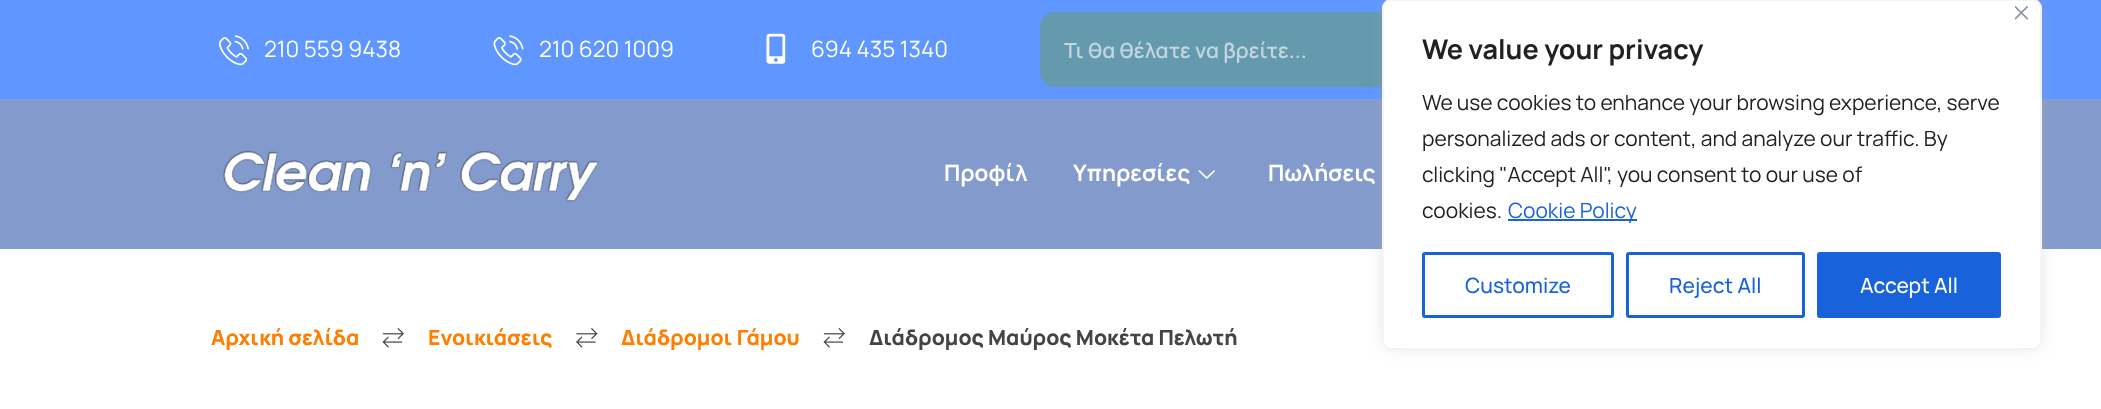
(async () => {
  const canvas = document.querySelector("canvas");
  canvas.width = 2101;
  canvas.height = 409;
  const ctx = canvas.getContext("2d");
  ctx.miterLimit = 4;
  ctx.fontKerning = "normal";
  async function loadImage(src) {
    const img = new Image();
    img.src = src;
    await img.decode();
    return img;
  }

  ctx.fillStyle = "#ffffff";
  ctx.fillRect(0, 0, 2101, 409);
  ctx.fillStyle = "#5f96ff";
  ctx.fillRect(0, 0, 2101, 99);
  ctx.drawImage(await loadImage("img/1.png"), 219, 35, 30, 31);
  ctx.drawImage(await loadImage("img/2.png"), 493, 35, 31, 31);
  ctx.drawImage(await loadImage("img/3.png"), 766, 33, 20, 31);
  ctx.fillStyle = "#6499ae";
  ctx.beginPath();
  ctx.roundRect(1040, 12, 813, 75, 15);
  ctx.fill();
  ctx.fillStyle = "#839bcc";
  ctx.fillRect(0, 99, 2101, 150);
  ctx.drawImage(await loadImage("img/4.png"), 223, 151, 376, 51);
  ctx.drawImage(await loadImage("img/5.png"), 1198, 170, 17, 9);
  ctx.fillStyle = "rgba(172, 171, 171, 0.3)";
  ctx.filter = "blur(7.5px)";
  ctx.beginPath();
  ctx.roundRect(1382, -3, 660, 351, 9);
  ctx.fill();
  ctx.filter = "none";
  ctx.fillStyle = "#ffffff";
  ctx.beginPath();
  ctx.roundRect(1383, 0, 658, 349, 8);
  ctx.fill();
  ctx.strokeStyle = "#f4f4f4";
  ctx.lineWidth = 2;
  ctx.stroke();
  ctx.drawImage(await loadImage("img/6.png"), 2015, 6, 13, 14);
  ctx.fillStyle = "#1863dc";
  ctx.fillRect(1508, 219, 129, 2);
  ctx.beginPath();
  ctx.roundRect(1423.5, 253.5, 189, 63, 1.5);
  ctx.strokeStyle = "#1863dc";
  ctx.lineWidth = 3;
  ctx.stroke();
  ctx.beginPath();
  ctx.roundRect(1627.5, 253.5, 176, 63, 1.5);
  ctx.stroke();
  ctx.beginPath();
  ctx.roundRect(1818.5, 253.5, 181, 63, 1.5);
  ctx.fill();
  ctx.stroke();
  ctx.drawImage(await loadImage("img/7.png"), 382, 328, 22, 20);
  ctx.drawImage(await loadImage("img/8.png"), 576, 328, 22, 20);
  ctx.drawImage(await loadImage("img/7.png"), 823, 328, 22, 20);
  ctx.font = "22.5px Manrope";
  ctx.fillStyle = "#ffffff";
  for (const [text, x, y] of [
    ["210 559 9438", 264, 57],
    ["210 620 1009", 539, 57],
    ["694 435 1340", 811, 57],
  ]) {
    ctx.fillText(text, x, y);
  }
  ctx.font = "600 21px Manrope";
  ctx.fillStyle = "#c1d6df";
  ctx.fillText("Τι θα θέλατε να βρείτε...", 1064, 58);
  ctx.font = "bold 22.5px Manrope";
  ctx.fillStyle = "#ffffff";
  for (const [text, x, y] of [
    ["Προφίλ", 944, 181],
    ["Υπηρεσίες", 1073, 181],
    ["Πωλήσεις", 1268, 181],
  ]) {
    ctx.fillText(text, x, y);
  }
  ctx.font = "bold 27px Manrope";
  ctx.fillStyle = "#212121";
  ctx.fillText("We value your privacy", 1422, 59);
  ctx.font = "21px Manrope";
  for (const [text, x, y] of [
    ["We use cookies to enhance your browsing experience, serve", 1422, 110],
    ["personalized ads or content, and analyze our traffic. By", 1422, 146],
    ["clicking \"Accept All\", you consent to our use of", 1422, 182],
    ["cookies.", 1422, 218],
  ]) {
    ctx.fillText(text, x, y);
  }
  ctx.fillStyle = "#1863dc";
  ctx.fillText("Cookie Policy", 1508, 218);
  ctx.font = "500 21px Manrope";
  ctx.fillText("Customize", 1465, 293);
  ctx.fillText("Reject All", 1669, 293);
  ctx.fillStyle = "#ffffff";
  ctx.fillText("Accept All", 1860, 293);
  ctx.font = "800 21px Manrope";
  ctx.fillStyle = "#ff7e00";
  for (const [text, x, y] of [
    ["Αρχική σελίδα", 211, 345],
    ["Ενοικιάσεις", 428, 345],
    ["Διάδρομοι Γάμου", 621, 345],
  ]) {
    ctx.fillText(text, x, y);
  }
  ctx.fillStyle = "#444444";
  ctx.fillText("Διάδρομος Μαύρος Μοκέτα Πελωτή", 869, 345);
})();
